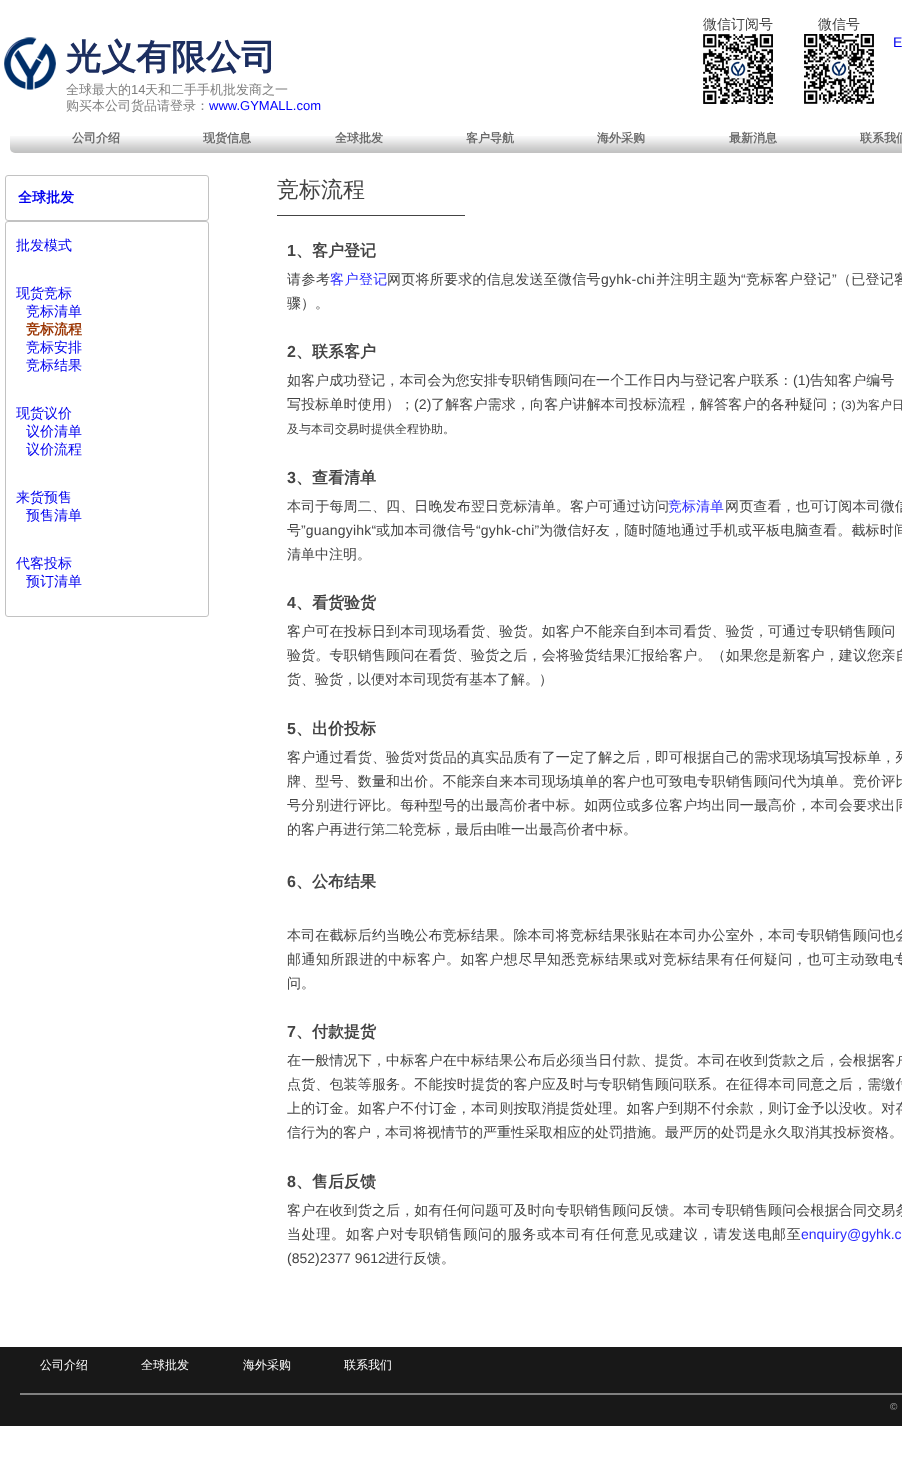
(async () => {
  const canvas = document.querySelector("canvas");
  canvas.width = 902;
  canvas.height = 1472;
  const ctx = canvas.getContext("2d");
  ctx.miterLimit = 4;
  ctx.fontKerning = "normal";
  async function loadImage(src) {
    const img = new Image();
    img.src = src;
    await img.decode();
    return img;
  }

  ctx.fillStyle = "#ffffff";
  ctx.fillRect(0, 0, 902, 1472);
  ctx.drawImage(await loadImage("img/1.png"), 4, 37, 52, 53);
  ctx.drawImage(await loadImage("img/2.png"), 703, 34, 70, 70);
  ctx.drawImage(await loadImage("img/3.png"), 804, 34, 70, 70);
  ctx.drawImage(await loadImage("img/4.png"), 10, 136, 892, 17);
  ctx.beginPath();
  ctx.roundRect(5.5, 175.5, 203, 45, 2.5);
  ctx.strokeStyle = "#c2c2c2";
  ctx.stroke();
  ctx.beginPath();
  ctx.roundRect(5.5, 221.5, 203, 395, 2.5);
  ctx.stroke();
  for (const [x, y, w, h, color] of [
    [277, 215, 188, 1, "#444444"],
    [0, 1347, 902, 79, "#181818"],
    [20, 1393, 882, 2, "#808080"],
  ]) {
    ctx.fillStyle = color;
    ctx.fillRect(x, y, w, h);
  }
  ctx.font = "500 14px WenQuanYi Zen Hei";
  ctx.fillStyle = "#444444";
  ctx.fillText("微信订阅号", 703, 29);
  ctx.fillText("微信号", 818, 29);
  ctx.font = "bold 35px WenQuanYi Zen Hei";
  ctx.fillStyle = "#1c2e60";
  ctx.fillText("光义有限公司", 66, 69);
  ctx.font = "500 13px WenQuanYi Zen Hei";
  ctx.fillStyle = "#808080";
  ctx.fillText("全球最大的", 66, 94);
  ctx.font = "13px Liberation Sans";
  ctx.fillText("14", 131, 94);
  ctx.font = "500 13px WenQuanYi Zen Hei";
  ctx.fillText("天和二手手机批发商之一", 145, 94);
  ctx.fillText("购买本公司货品请登录：", 66, 110);
  ctx.font = "13px Liberation Sans";
  ctx.fillStyle = "#0000ff";
  ctx.fillText("www.GYMALL.com", 209, 110);
  ctx.font = "14px Liberation Sans";
  ctx.fillStyle = "#0000ee";
  ctx.fillText("E", 893, 47);
  ctx.font = "bold 12px WenQuanYi Zen Hei";
  ctx.fillStyle = "#6a6a6a";
  for (const [text, x, y] of [
    ["公司介绍", 72, 142],
    ["现货信息", 203, 142],
    ["全球批发", 335, 142],
    ["客户导航", 466, 142],
    ["海外采购", 597, 142],
    ["最新消息", 729, 142],
    ["联系我们", 860, 142],
  ]) {
    ctx.fillText(text, x, y);
  }
  ctx.font = "bold 14px WenQuanYi Zen Hei";
  ctx.fillStyle = "#0000ee";
  ctx.fillText("全球批发", 18, 202);
  ctx.font = "500 14px WenQuanYi Zen Hei";
  for (const [text, x, y] of [
    ["批发模式", 16, 250],
    ["现货竞标", 16, 298],
    ["竞标清单", 26, 316],
  ]) {
    ctx.fillText(text, x, y);
  }
  ctx.font = "bold 14px WenQuanYi Zen Hei";
  ctx.fillStyle = "#993300";
  ctx.fillText("竞标流程", 26, 334);
  ctx.font = "500 14px WenQuanYi Zen Hei";
  ctx.fillStyle = "#0000ee";
  for (const [text, x, y] of [
    ["竞标安排", 26, 352],
    ["竞标结果", 26, 370],
    ["现货议价", 16, 418],
    ["议价清单", 26, 436],
    ["议价流程", 26, 454],
    ["来货预售", 16, 502],
    ["预售清单", 26, 520],
    ["代客投标", 16, 568],
    ["预订清单", 26, 586],
  ]) {
    ctx.fillText(text, x, y);
  }
  ctx.font = "500 22px WenQuanYi Zen Hei";
  ctx.fillStyle = "#444444";
  ctx.fillText("竞标流程", 277, 197);
  ctx.font = "bold 16px Liberation Sans";
  ctx.fillText("1", 287, 256);
  ctx.font = "bold 16px WenQuanYi Zen Hei";
  ctx.fillText("、客户登记", 296, 256);
  ctx.letterSpacing = "0.5px";
  ctx.font = "500 14px WenQuanYi Zen Hei";
  ctx.fillText("请参考", 287, 284);
  ctx.letterSpacing = "0.45px";
  ctx.fillStyle = "#2b2bff";
  ctx.fillText("客户登记", 330, 284);
  ctx.letterSpacing = "0.25px";
  ctx.fillStyle = "#444444";
  ctx.fillText("网页将所要求的信息发送至微信号", 387, 284);
  ctx.font = "14px Liberation Sans";
  ctx.fillText("gyhk-chi", 601, 284);
  ctx.font = "500 14px WenQuanYi Zen Hei";
  ctx.fillText("并注明主题为", 656, 284);
  ctx.font = "14px Liberation Sans";
  ctx.fillText("“", 741, 284);
  ctx.font = "500 14px WenQuanYi Zen Hei";
  ctx.fillText("竞标客户登记", 746, 284);
  ctx.font = "14px Liberation Sans";
  ctx.fillText("”", 832, 284);
  ctx.font = "500 14px WenQuanYi Zen Hei";
  ctx.fillText("（已登记客", 837, 284);
  ctx.letterSpacing = "0px";
  ctx.fillText("骤）。", 287, 308);
  ctx.font = "bold 16px Liberation Sans";
  ctx.fillText("2", 287, 357);
  ctx.font = "bold 16px WenQuanYi Zen Hei";
  ctx.fillText("、联系客户", 296, 357);
  ctx.letterSpacing = "0.05px";
  ctx.font = "500 14px WenQuanYi Zen Hei";
  ctx.fillText("如客户成功登记，本司会为您安排专职销售顾问在一个工作日内与登记客户联系：", 287, 385);
  ctx.font = "14px Liberation Sans";
  ctx.fillText("(1)", 793, 385);
  ctx.font = "500 14px WenQuanYi Zen Hei";
  ctx.fillText("告知客户编号", 810, 385);
  ctx.letterSpacing = "0.15px";
  ctx.fillText("写投标单时使用）；", 287, 409);
  ctx.font = "14px Liberation Sans";
  ctx.fillText("(2)", 414, 409);
  ctx.font = "500 14px WenQuanYi Zen Hei";
  ctx.fillText("了解客户需求，向客户讲解本司投标流程，解答客户的各种疑问；", 431, 409);
  ctx.letterSpacing = "0px";
  ctx.font = "12px Liberation Sans";
  ctx.fillText("(3)", 841, 409);
  ctx.font = "500 12px WenQuanYi Zen Hei";
  ctx.fillText("为客户日", 856, 409);
  ctx.fillText("及与本司交易时提供全程协助。", 287, 433);
  ctx.font = "bold 16px Liberation Sans";
  ctx.fillText("3", 287, 483);
  ctx.font = "bold 16px WenQuanYi Zen Hei";
  ctx.fillText("、查看清单", 296, 483);
  ctx.letterSpacing = "0.15px";
  ctx.font = "500 14px WenQuanYi Zen Hei";
  ctx.fillText("本司于每周二、四、日晚发布翌日竞标清单。客户可通过访问", 287, 511);
  ctx.letterSpacing = "0px";
  ctx.fillStyle = "#2b2bff";
  ctx.fillText("竞标清单", 668, 511);
  ctx.letterSpacing = "0.15px";
  ctx.fillStyle = "#444444";
  ctx.fillText("网页查看，也可订阅本司微信", 725, 511);
  ctx.letterSpacing = "0.2px";
  ctx.fillText("号", 287, 535);
  ctx.font = "14px Liberation Sans";
  ctx.fillText("”guangyihk“", 301, 535);
  ctx.font = "500 14px WenQuanYi Zen Hei";
  ctx.fillText("或加本司微信号", 376, 535);
  ctx.font = "14px Liberation Sans";
  ctx.fillText("“gyhk-chi”", 476, 535);
  ctx.font = "500 14px WenQuanYi Zen Hei";
  ctx.fillText("为微信好友，随时随地通过手机或平板电脑查看。截标时间", 539, 535);
  ctx.letterSpacing = "0px";
  ctx.fillText("清单中注明。", 287, 559);
  ctx.font = "bold 16px Liberation Sans";
  ctx.fillText("4", 287, 608);
  ctx.font = "bold 16px WenQuanYi Zen Hei";
  ctx.fillText("、看货验货", 296, 608);
  ctx.letterSpacing = "0.15px";
  ctx.font = "500 14px WenQuanYi Zen Hei";
  ctx.fillText("客户可在投标日到本司现场看货、验货。如客户不能亲自到本司看货、验货，可通过专职销售顾问", 287, 636);
  ctx.fillText("验货。专职销售顾问在看货、验货之后，会将验货结果汇报给客户。（如果您是新客户，建议您亲自", 287, 660);
  ctx.letterSpacing = "0px";
  ctx.fillText("货、验货，以便对本司现货有基本了解。）", 287, 684);
  ctx.font = "bold 16px Liberation Sans";
  ctx.fillText("5", 287, 734);
  ctx.font = "bold 16px WenQuanYi Zen Hei";
  ctx.fillText("、出价投标", 296, 734);
  ctx.letterSpacing = "0.15px";
  ctx.font = "500 14px WenQuanYi Zen Hei";
  for (const [text, x, y] of [
    ["客户通过看货、验货对货品的真实品质有了一定了解之后，即可根据自己的需求现场填写投标单，列", 287, 762],
    ["牌、型号、数量和出价。不能亲自来本司现场填单的客户也可致电专职销售顾问代为填单。竞价评比", 287, 786],
    ["号分别进行评比。每种型号的出最高价者中标。如两位或多位客户均出同一最高价，本司会要求出同", 287, 810],
  ]) {
    ctx.fillText(text, x, y);
  }
  ctx.letterSpacing = "0px";
  ctx.fillText("的客户再进行第二轮竞标，最后由唯一出最高价者中标。", 287, 834);
  ctx.font = "bold 16px Liberation Sans";
  ctx.fillText("6", 287, 887);
  ctx.font = "bold 16px WenQuanYi Zen Hei";
  ctx.fillText("、公布结果", 296, 887);
  ctx.letterSpacing = "0.15px";
  ctx.font = "500 14px WenQuanYi Zen Hei";
  ctx.fillText("本司在截标后约当晚公布竞标结果。除本司将竞标结果张贴在本司办公室外，本司专职销售顾问也会", 287, 940);
  ctx.letterSpacing = "0.45px";
  ctx.fillText("邮通知所跟进的中标客户。如客户想尽早知悉竞标结果或对竞标结果有任何疑问，也可主动致电专", 287, 964);
  ctx.letterSpacing = "0px";
  ctx.fillText("问。", 287, 988);
  ctx.font = "bold 16px Liberation Sans";
  ctx.fillText("7", 287, 1037);
  ctx.font = "bold 16px WenQuanYi Zen Hei";
  ctx.fillText("、付款提货", 296, 1037);
  ctx.letterSpacing = "0.15px";
  ctx.font = "500 14px WenQuanYi Zen Hei";
  for (const [text, x, y] of [
    ["在一般情况下，中标客户在中标结果公布后必须当日付款、提货。本司在收到货款之后，会根据客户", 287, 1065],
    ["点货、包装等服务。不能按时提货的客户应及时与专职销售顾问联系。在征得本司同意之后，需缴付", 287, 1089],
    ["上的订金。如客户不付订金，本司则按取消提货处理。如客户到期不付余款，则订金予以没收。对存", 287, 1113],
  ]) {
    ctx.fillText(text, x, y);
  }
  ctx.letterSpacing = "0px";
  ctx.fillText("信行为的客户，本司将视情节的严重性采取相应的处罚措施。最严厉的处罚是永久取消其投标资格。", 287, 1137);
  ctx.font = "bold 16px Liberation Sans";
  ctx.fillText("8", 287, 1187);
  ctx.font = "bold 16px WenQuanYi Zen Hei";
  ctx.fillText("、售后反馈", 296, 1187);
  ctx.letterSpacing = "0.15px";
  ctx.font = "500 14px WenQuanYi Zen Hei";
  ctx.fillText("客户在收到货之后，如有任何问题可及时向专职销售顾问反馈。本司专职销售顾问会根据合同交易条", 287, 1215);
  ctx.letterSpacing = "0.7px";
  ctx.fillText("当处理。如客户对专职销售顾问的服务或本司有任何意见或建议，请发送电邮至", 287, 1239);
  ctx.letterSpacing = "0px";
  ctx.font = "14px Liberation Sans";
  ctx.fillStyle = "#2b2bff";
  ctx.fillText("enquiry@gyhk.c", 801, 1239);
  ctx.fillStyle = "#444444";
  ctx.fillText("(852)2377 9612", 287, 1263);
  ctx.font = "500 14px WenQuanYi Zen Hei";
  ctx.fillText("进行反馈。", 385, 1263);
  ctx.font = "500 12px WenQuanYi Zen Hei";
  ctx.fillStyle = "#ffffff";
  for (const [text, x, y] of [
    ["公司介绍", 40, 1369],
    ["全球批发", 141, 1369],
    ["海外采购", 243, 1369],
    ["联系我们", 344, 1369],
  ]) {
    ctx.fillText(text, x, y);
  }
  ctx.font = "10px Liberation Sans";
  ctx.fillStyle = "#a6a6a6";
  ctx.fillText("©", 890, 1410);
})();
